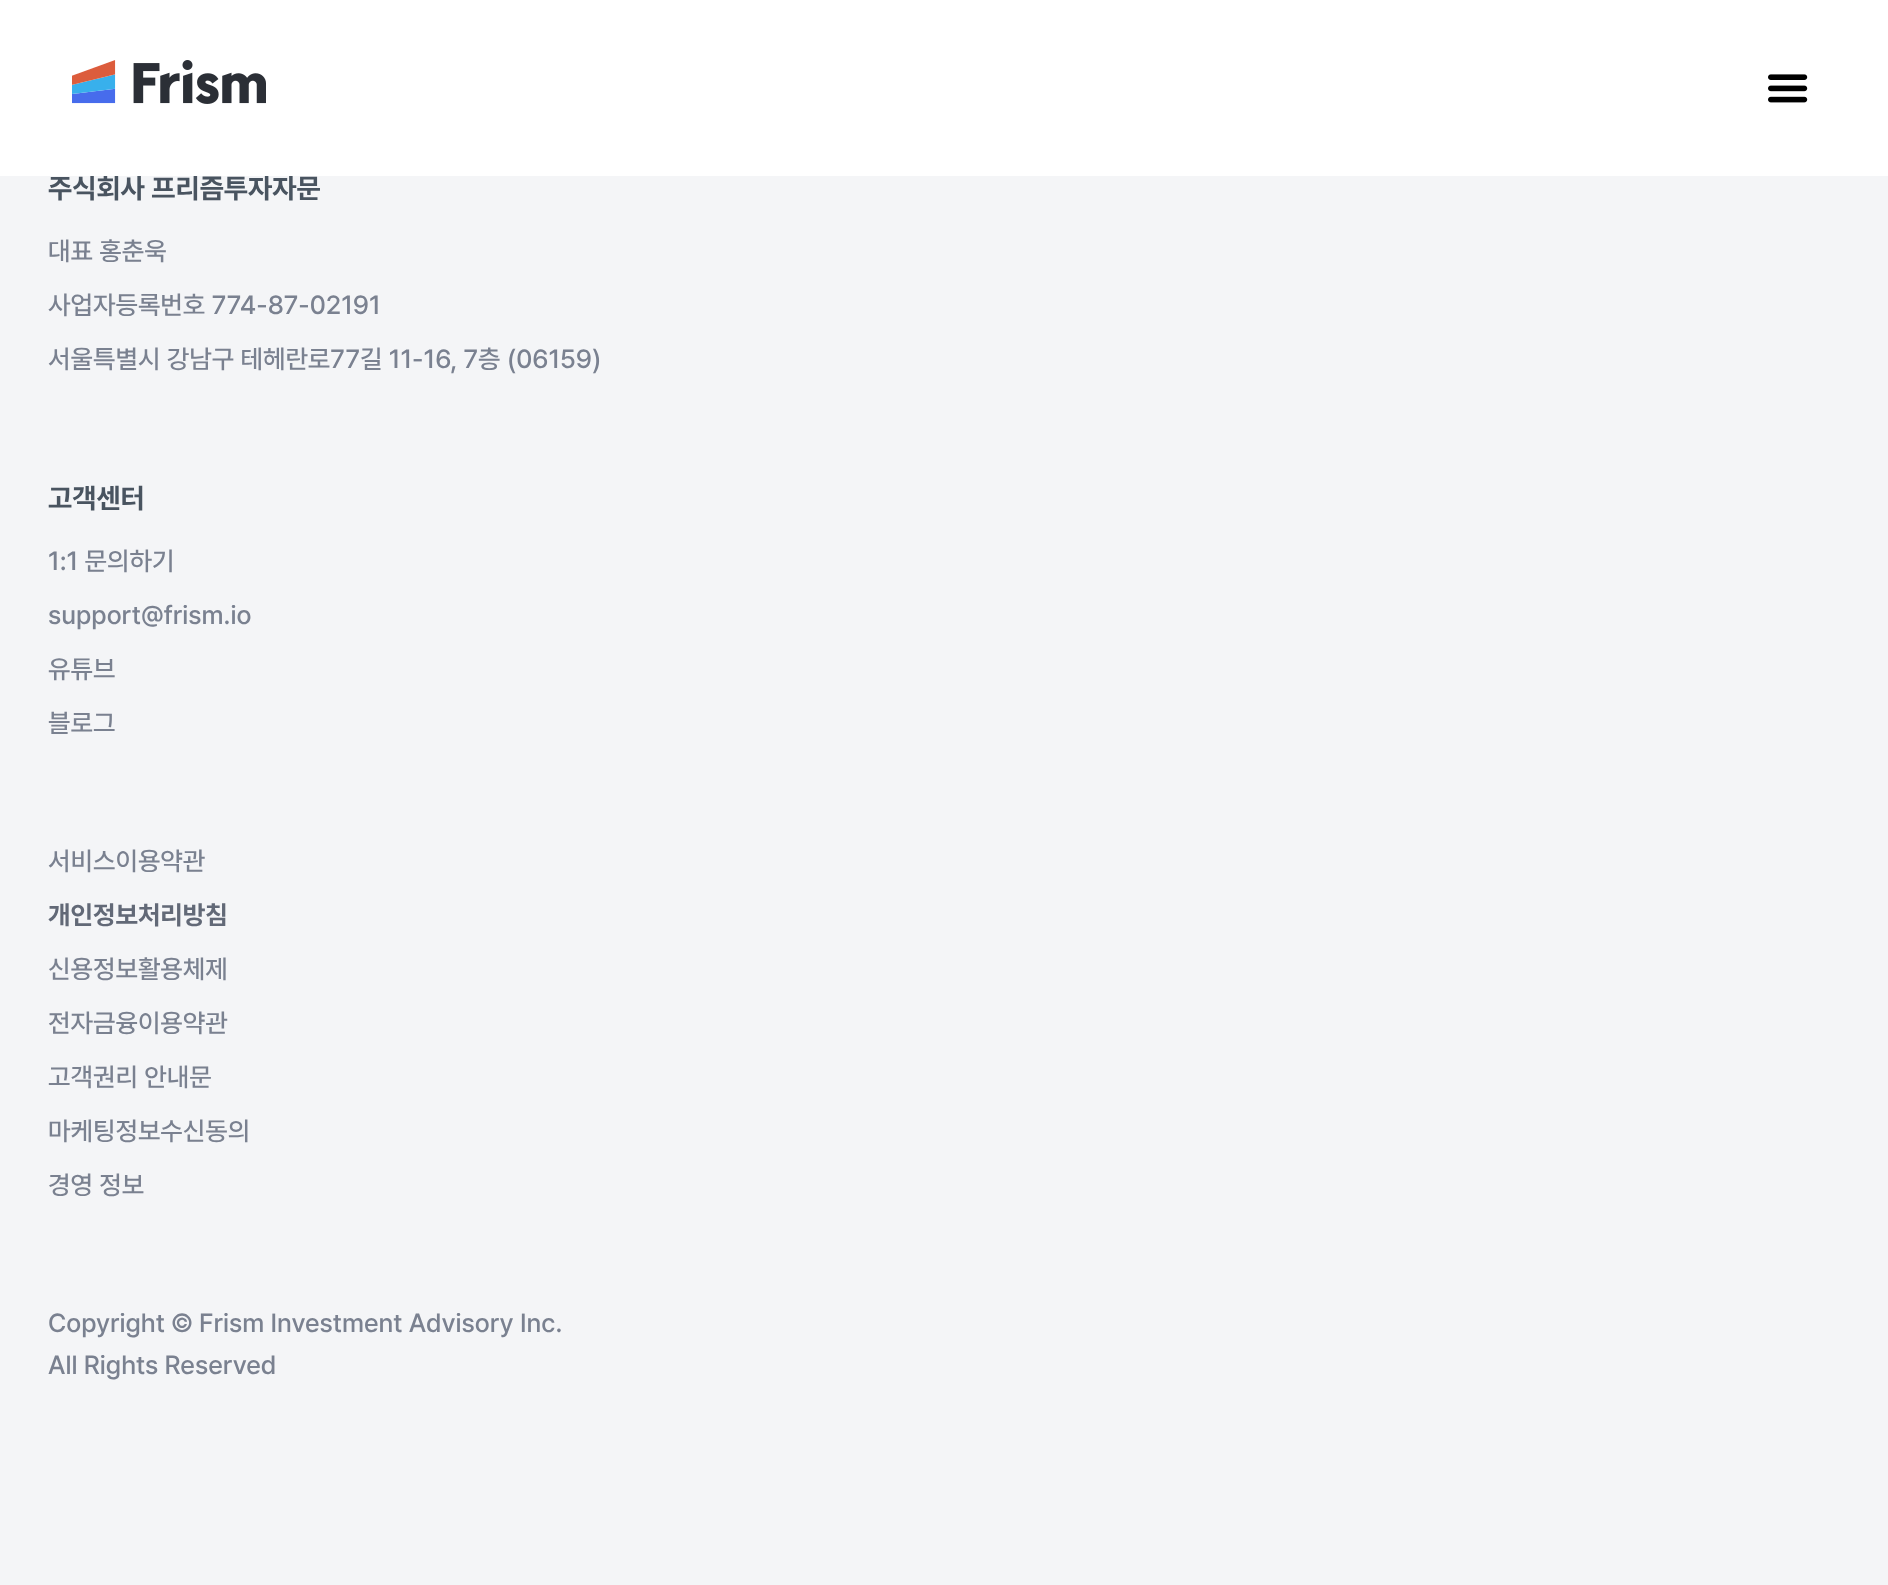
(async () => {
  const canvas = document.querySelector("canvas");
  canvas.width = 1888;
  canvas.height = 1585;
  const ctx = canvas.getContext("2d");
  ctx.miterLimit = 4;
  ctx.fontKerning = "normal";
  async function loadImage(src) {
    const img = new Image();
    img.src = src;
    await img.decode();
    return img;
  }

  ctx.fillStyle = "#f4f5f7";
  ctx.fillRect(0, 0, 1888, 1585);
  ctx.font = "bold 28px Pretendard";
  ctx.fillStyle = "#495460";
  ctx.fillText("주식회사 프리즘투자자문", 48, 198);
  ctx.fillStyle = "#ffffff";
  ctx.fillRect(0, 0, 1888, 176);
  ctx.drawImage(await loadImage("img/2.png"), 1768, 74, 40, 29);
  ctx.drawImage(await loadImage("img/1.png"), 72, 60, 194, 44);
  ctx.font = "500 26px Pretendard";
  ctx.fillStyle = "#7a8190";
  for (const [text, x, y] of [
    ["대표 홍춘욱", 48, 260],
    ["사업자등록번호 774-87-02191", 48, 314],
    ["서울특별시 강남구 테헤란로77길 11-16, 7층 (06159)", 48, 368],
  ]) {
    ctx.fillText(text, x, y);
  }
  ctx.font = "bold 28px Pretendard";
  ctx.fillStyle = "#495460";
  ctx.fillText("고객센터", 48, 508);
  ctx.font = "500 26px Pretendard";
  ctx.fillStyle = "#7a8190";
  for (const [text, x, y] of [
    ["1:1 문의하기", 48, 570],
    ["support@frism.io", 48, 624],
    ["유튜브", 48, 678],
    ["블로그", 48, 732],
    ["서비스이용약관", 48, 870],
  ]) {
    ctx.fillText(text, x, y);
  }
  ctx.font = "bold 26px Pretendard";
  ctx.fillStyle = "#626977";
  ctx.fillText("개인정보처리방침", 48, 924);
  ctx.font = "500 26px Pretendard";
  ctx.fillStyle = "#7a8190";
  for (const [text, x, y] of [
    ["신용정보활용체제", 48, 978],
    ["전자금융이용약관", 48, 1032],
    ["고객권리 안내문", 48, 1086],
    ["마케팅정보수신동의", 48, 1140],
    ["경영 정보", 48, 1194],
    ["Copyright © Frism Investment Advisory Inc.", 48, 1332],
    ["All Rights Reserved", 48, 1374],
  ]) {
    ctx.fillText(text, x, y);
  }
})();
